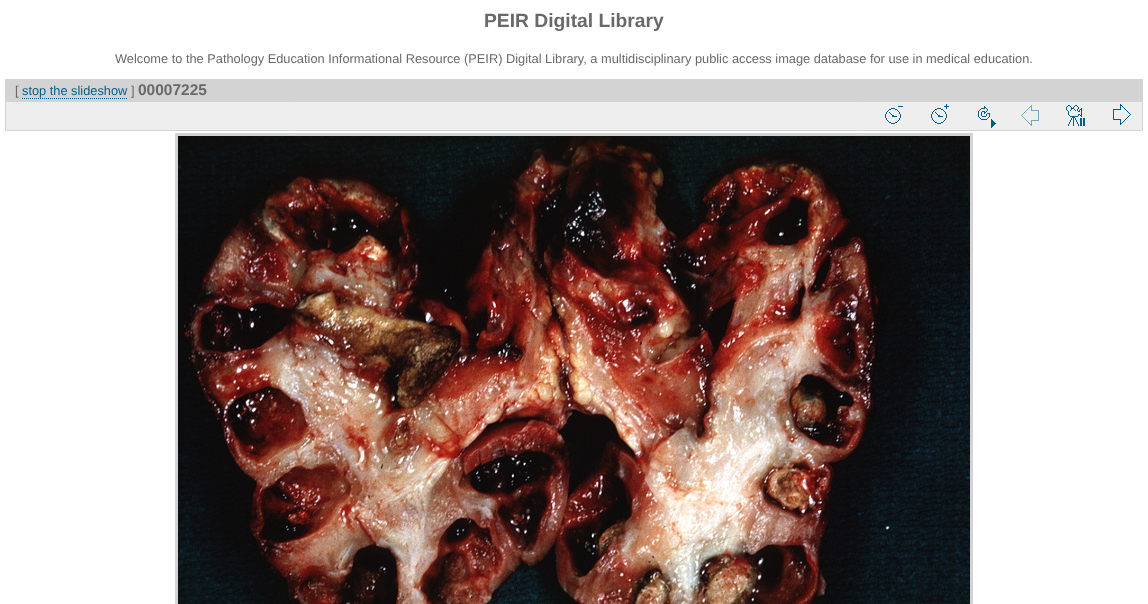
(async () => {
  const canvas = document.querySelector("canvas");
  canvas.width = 1148;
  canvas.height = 604;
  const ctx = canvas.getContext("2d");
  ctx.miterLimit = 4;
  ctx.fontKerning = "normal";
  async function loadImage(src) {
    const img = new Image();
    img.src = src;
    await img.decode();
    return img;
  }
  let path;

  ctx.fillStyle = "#ffffff";
  ctx.fillRect(0, 0, 1148, 604);
  ctx.fillStyle = "#d3d3d3";
  ctx.fillRect(5, 79, 1138, 22);
  path = new Path2D("M22 98.5H127");
  ctx.strokeStyle = "#005e89";
  ctx.setLineDash([1, 1]);
  ctx.stroke(path);
  ctx.fillStyle = "#eeeeee";
  ctx.beginPath();
  ctx.rect(5.5, 101.5, 1137, 29);
  ctx.fill();
  ctx.strokeStyle = "#d3d3d3";
  ctx.setLineDash([]);
  ctx.stroke();
  ctx.drawImage(await loadImage("img/1.png"), 885, 106, 18, 18);
  ctx.drawImage(await loadImage("img/2.png"), 931, 104, 18, 20);
  ctx.drawImage(await loadImage("img/3.png"), 978, 106, 18, 22);
  ctx.drawImage(await loadImage("img/4.png"), 1021, 105, 18, 21);
  ctx.drawImage(await loadImage("img/5.png"), 1066, 105, 19, 21);
  ctx.drawImage(await loadImage("img/6.png"), 1113, 104, 18, 21);
  ctx.lineWidth = 3;
  ctx.strokeRect(176.5, 134.5, 795, 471);
  ctx.drawImage(await loadImage("img/7.png"), 178, 136, 792, 468);
  ctx.font = "bold 19.25px Liberation Sans";
  ctx.fillStyle = "#696969";
  ctx.fillText("PEIR Digital Library", 484, 27);
  ctx.font = "12.8px Liberation Sans";
  ctx.fillText("Welcome to the Pathology Education Informational Resource (PEIR) Digital Library, a multidisciplinary public access image database for use in medical education.", 115, 63);
  ctx.fillText("[", 15, 95);
  ctx.fillStyle = "#005e89";
  ctx.fillText("stop the slideshow", 22, 95);
  ctx.fillStyle = "#696969";
  ctx.fillText("]", 131, 95);
  ctx.font = "bold 15.5px Liberation Sans";
  ctx.fillText("00007225", 138, 95);
})();
